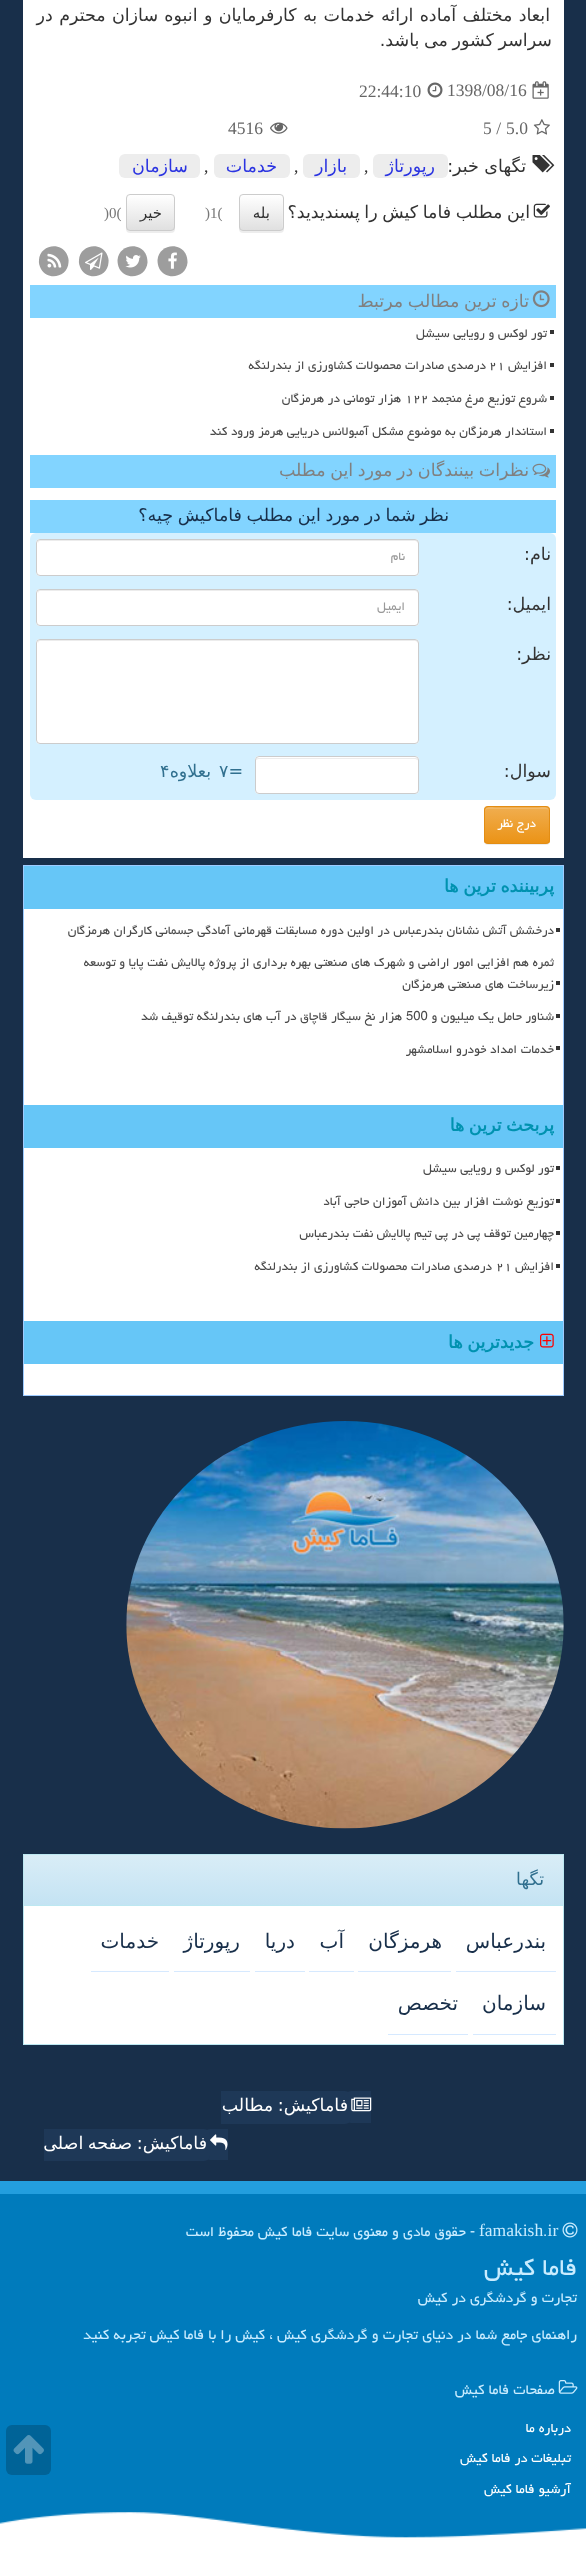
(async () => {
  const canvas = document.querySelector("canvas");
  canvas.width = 586;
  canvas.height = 2549;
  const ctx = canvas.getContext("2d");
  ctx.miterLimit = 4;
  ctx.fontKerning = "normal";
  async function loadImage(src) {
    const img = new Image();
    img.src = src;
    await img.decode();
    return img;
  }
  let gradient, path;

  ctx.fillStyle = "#182f4a";
  ctx.fillRect(0, 0, 586, 2549);
  ctx.fillStyle = "#ffffff";
  ctx.fillRect(23, 0, 541, 858);
  ctx.drawImage(await loadImage("img/1.png"), 532, 81, 17, 18);
  ctx.drawImage(await loadImage("img/2.png"), 427, 82, 16, 16);
  ctx.drawImage(await loadImage("img/3.png"), 533, 119, 17, 16);
  ctx.drawImage(await loadImage("img/4.png"), 270, 122, 18, 12);
  ctx.drawImage(await loadImage("img/5.png"), 532, 155, 23, 18);
  ctx.fillStyle = "#ededed";
  ctx.beginPath();
  ctx.roundRect(373, 154, 75, 24, 6);
  ctx.fill();
  ctx.beginPath();
  ctx.roundRect(303, 154, 57, 24, 6);
  ctx.fill();
  ctx.beginPath();
  ctx.roundRect(214, 154, 76, 24, 6);
  ctx.fill();
  ctx.beginPath();
  ctx.roundRect(119, 154, 81, 24, 6);
  ctx.fill();
  ctx.drawImage(await loadImage("img/6.png"), 533, 203, 17, 15);
  ctx.fillStyle = "rgba(0, 0, 0, 0.07)";
  ctx.filter = "blur(0.5px)";
  ctx.beginPath();
  ctx.roundRect(239, 195, 45, 38, 4);
  ctx.fill();
  ctx.filter = "none";
  ctx.save();
  ctx.beginPath();
  ctx.roundRect(239, 194, 45, 37, 4);
  ctx.clip();
  gradient = ctx.createLinearGradient(261, 195, 261, 230);
  gradient.addColorStop(0, "#ffffff");
  gradient.addColorStop(1, "#e0e0e0");
  ctx.fillStyle = gradient;
  ctx.fillRect(239, 195, 45, 35);
  ctx.restore();
  ctx.fillStyle = "rgba(255, 255, 255, 0.15)";
  path = new Path2D("M242 196H274C285 196 282 196 282 209V230C284 228 283 224 283 222V212C283 192 287 195 268 195H249C244 195 240 194 240 199C240 197 241 196 242 196Z");
  ctx.fill(path);
  ctx.beginPath();
  ctx.roundRect(239.5, 194.5, 44, 36, 3.5);
  ctx.strokeStyle = "#cccccc";
  ctx.stroke();
  ctx.fillStyle = "rgba(0, 0, 0, 0.07)";
  ctx.filter = "blur(0.5px)";
  ctx.beginPath();
  ctx.roundRect(126, 195, 49, 38, 4);
  ctx.fill();
  ctx.filter = "none";
  ctx.save();
  ctx.beginPath();
  ctx.roundRect(126, 194, 49, 37, 4);
  ctx.clip();
  gradient = ctx.createLinearGradient(151, 195, 151, 230);
  gradient.addColorStop(0, "#ffffff");
  gradient.addColorStop(1, "#e0e0e0");
  ctx.fillStyle = gradient;
  ctx.fillRect(126, 195, 49, 35);
  ctx.restore();
  ctx.beginPath();
  ctx.roundRect(126.5, 194.5, 48, 36, 3.5);
  ctx.stroke();
  ctx.fillStyle = "#9d9d9d";
  path = new Path2D("M185.5 253.5C187 256.5 187.5 259.5 187.5 262.5C186.5 277 167 281.5 159.5 269C158 266 157.5 263 157.5 260C158.5 245.5 178 241 185.5 253.5Z");
  ctx.fill(path);
  ctx.drawImage(await loadImage("img/7.png"), 168, 252, 9, 17);
  path = new Path2D("M145.5 253.5C147 256.5 147.5 259.5 147.5 262.5C146.5 277 127 281.5 119.5 269C118 266 117.5 263 117.5 260C118.5 245.5 138 241 145.5 253.5Z");
  ctx.fill(path);
  ctx.drawImage(await loadImage("img/8.png"), 125, 255, 16, 13);
  path = new Path2D("M106.5 253.5C108 256.5 109 259.5 108.5 262.5C108 277 88 281.5 81 269C79.5 266 78.5 263 79 260C79.5 245.5 99.5 241 106.5 253.5Z");
  ctx.fill(path);
  ctx.drawImage(await loadImage("img/9.png"), 85, 252, 18, 18);
  path = new Path2D("M66.5 253.5C68 256.5 69 259.5 68.5 262.5C68 277 48 281.5 41 269C39.5 266 38.5 263 39 260C39.5 245.5 59.5 241 66.5 253.5Z");
  ctx.fill(path);
  ctx.drawImage(await loadImage("img/10.png"), 47, 253, 15, 15);
  ctx.fillStyle = "#82d4ff";
  ctx.fillRect(30, 285, 526, 33);
  ctx.drawImage(await loadImage("img/11.png"), 532, 290, 18, 18);
  for (const [x, y, w, h, color] of [
    [550, 330, 4, 4, "#333333"],
    [550, 363, 4, 4, "#333333"],
    [550, 396, 4, 4, "#333333"],
    [550, 429, 4, 4, "#333333"],
    [30, 455, 526, 33, "#82d4ff"],
  ]) {
    ctx.fillStyle = color;
    ctx.fillRect(x, y, w, h);
  }
  ctx.drawImage(await loadImage("img/12.png"), 532, 463, 18, 15);
  ctx.fillRect(30, 500, 526, 33);
  ctx.fillStyle = "#d4f0ff";
  ctx.beginPath();
  ctx.roundRect(30, 533, 526, 267, 6);
  ctx.fill();
  ctx.fillStyle = "#ffffff";
  ctx.beginPath();
  ctx.roundRect(36, 539, 383, 37, 4);
  ctx.fill();
  ctx.fillStyle = "#ececec";
  path = new Path2D("M40 541H415C416 541 418 542 418 544V542C418 541 417 540 416 540H40C39 540 38 541 38 542V544C38 542 39 541 40 541Z");
  ctx.fill(path);
  ctx.beginPath();
  ctx.roundRect(36.5, 539.5, 382, 36, 3.5);
  ctx.stroke();
  ctx.fillStyle = "#ffffff";
  ctx.beginPath();
  ctx.roundRect(36, 589, 383, 37, 4);
  ctx.fill();
  ctx.fillStyle = "#ececec";
  path = new Path2D("M40 591H415C416 591 418 592 418 594V592C418 591 417 590 416 590H40C39 590 38 591 38 592V594C38 592 39 591 40 591Z");
  ctx.fill(path);
  ctx.beginPath();
  ctx.roundRect(36.5, 589.5, 382, 36, 3.5);
  ctx.stroke();
  ctx.fillStyle = "#ffffff";
  ctx.beginPath();
  ctx.roundRect(36, 639, 383, 105, 4);
  ctx.fill();
  ctx.fillStyle = "#ececec";
  path = new Path2D("M40 641H415C416 641 418 642 418 644V642C418 641 417 640 416 640H40C39 640 38 641 38 642V644C38 642 39 641 40 641Z");
  ctx.fill(path);
  ctx.beginPath();
  ctx.roundRect(36.5, 639.5, 382, 104, 3.5);
  ctx.stroke();
  ctx.fillStyle = "#ffffff";
  ctx.beginPath();
  ctx.roundRect(255, 756, 164, 38, 4);
  ctx.fill();
  ctx.fillStyle = "#ececec";
  path = new Path2D("M259 759H415C416 759 418 760 418 761C418 759 417 758 416 758H258C257 758 256 759 256 761C256 760 257 759 259 759Z");
  ctx.fill(path);
  ctx.beginPath();
  ctx.roundRect(255.5, 756.5, 163, 37, 3.5);
  ctx.stroke();
  ctx.fillStyle = "rgba(0, 0, 0, 0.07)";
  ctx.filter = "blur(0.5px)";
  ctx.beginPath();
  ctx.roundRect(484, 808, 66, 37, 4);
  ctx.fill();
  ctx.filter = "none";
  ctx.fillStyle = "#f0ad4e";
  ctx.beginPath();
  ctx.roundRect(484, 806, 66, 38, 4);
  ctx.fill();
  ctx.save();
  ctx.beginPath();
  ctx.roundRect(484, 806, 66, 38, 4);
  ctx.clip();
  gradient = ctx.createLinearGradient(517, 808, 517, 843);
  gradient.addColorStop(0, "#f0ad4e");
  gradient.addColorStop(1, "#eb9316");
  ctx.fillStyle = gradient;
  ctx.fillRect(484, 808, 66, 35);
  ctx.restore();
  ctx.fillStyle = "#f2b968";
  path = new Path2D("M488 809H546C548 809 549 810 549 811C549 805 539 808 537 808H497C495 808 485 805 485 811C485 810 486 809 488 809Z");
  ctx.fill(path);
  ctx.beginPath();
  ctx.roundRect(484.5, 806.5, 65, 37, 3.5);
  ctx.strokeStyle = "#e38d13";
  ctx.stroke();
  ctx.fillStyle = "#ffffff";
  ctx.fillRect(24, 909, 539, 486);
  ctx.strokeStyle = "#9ecbff";
  ctx.strokeRect(23.5, 865.5, 540, 530);
  for (const [x, y, w, h, color] of [
    [24, 866, 539, 43, "#66c6f7"],
    [556, 928, 4, 4, "#333333"],
    [556, 981, 4, 4, "#333333"],
    [556, 1014, 4, 4, "#333333"],
    [556, 1046, 4, 4, "#333333"],
    [24, 1105, 539, 43, "#66c6f7"],
    [556, 1166, 4, 4, "#333333"],
    [556, 1199, 4, 4, "#333333"],
    [556, 1231, 4, 4, "#333333"],
    [556, 1264, 4, 4, "#333333"],
    [24, 1321, 539, 43, "#66c6f7"],
  ]) {
    ctx.fillStyle = color;
    ctx.fillRect(x, y, w, h);
  }
  ctx.drawImage(await loadImage("img/13.png"), 540, 1333, 14, 15);
  ctx.drawImage(await loadImage("img/14.png"), 126, 1421, 438, 408);
  ctx.fillStyle = "#ffffff";
  ctx.fillRect(24, 1906, 539, 138);
  ctx.strokeStyle = "#bce8f1";
  ctx.strokeRect(23.5, 1854.5, 540, 190);
  gradient = ctx.createLinearGradient(293, 1855, 293, 1905);
  gradient.addColorStop(0, "#d9edf7");
  gradient.addColorStop(1, "#c4e3f3");
  ctx.fillStyle = gradient;
  ctx.fillRect(24, 1855, 539, 50);
  for (const [x, y, w, h, color] of [
    [24, 1905, 539, 1, "#bce8f1"],
    [456, 1971, 100, 1, "#d6e9ff"],
    [358, 1971, 93, 1, "#d6e9ff"],
    [309, 1971, 45, 1, "#d6e9ff"],
    [255, 1971, 50, 1, "#d6e9ff"],
    [174, 1971, 76, 1, "#d6e9ff"],
    [91, 1971, 78, 1, "#d6e9ff"],
    [473, 2034, 83, 1, "#d6e9ff"],
    [388, 2034, 80, 1, "#d6e9ff"],
  ]) {
    ctx.fillStyle = color;
    ctx.fillRect(x, y, w, h);
  }
  ctx.fillStyle = "#1e3857";
  ctx.beginPath();
  ctx.roundRect(345, 2091, 26, 32, [6, 0, 0, 6]);
  ctx.fill();
  ctx.beginPath();
  ctx.roundRect(221, 2091, 130, 33, [0, 6, 6, 0]);
  ctx.fill();
  ctx.drawImage(await loadImage("img/15.png"), 351, 2097, 21, 15);
  ctx.beginPath();
  ctx.roundRect(204, 2129, 24, 31, [6, 0, 0, 6]);
  ctx.fill();
  ctx.beginPath();
  ctx.roundRect(44, 2129, 166, 32, [0, 6, 6, 0]);
  ctx.fill();
  ctx.drawImage(await loadImage("img/16.png"), 210, 2134, 18, 16);
  ctx.fillStyle = "#007bbc";
  ctx.fillRect(0, 2194, 586, 344);
  ctx.fillStyle = "#006397";
  ctx.beginPath();
  ctx.roundRect(6, 2425, 45, 50, 6);
  ctx.fill();
  ctx.drawImage(await loadImage("img/17.png"), 13, 2435, 31, 29);
  ctx.fillStyle = "#239ede";
  ctx.fillRect(0, 2181, 586, 13);
  ctx.drawImage(await loadImage("img/18.png"), 562, 2222, 16, 16);
  ctx.drawImage(await loadImage("img/19.png"), 558, 2380, 20, 14);
  ctx.drawImage(await loadImage("img/20.png"), 0, 2512, 586, 37);
  ctx.wordSpacing = "0.75px";
  ctx.direction = "rtl";
  ctx.font = "17.5px DejaVu Sans";
  ctx.fillStyle = "#333333";
  ctx.fillText("ابعاد مختلف آماده ارائه خدمات به کارفرمایان و انبوه سازان محترم در", 550, 21);
  ctx.wordSpacing = "-1px";
  ctx.fillText("سراسر کشور می باشد.", 552, 46);
  ctx.wordSpacing = "0px";
  ctx.direction = "ltr";
  ctx.font = "17.5px Liberation Serif";
  ctx.fillStyle = "#666666";
  for (const [text, x, y] of [
    ["1398/08/16", 447, 96],
    ["22:44:10", 359, 97],
    ["5.0", 506, 134],
    ["5 /", 483, 134],
    ["4516", 228, 134],
  ]) {
    ctx.fillText(text, x, y);
  }
  ctx.direction = "rtl";
  ctx.font = "17.5px DejaVu Sans";
  ctx.fillStyle = "#333333";
  ctx.fillText("تگهای خبر:", 526, 172);
  ctx.fillStyle = "#2b34e1";
  ctx.fillText("رپورتاژ", 435, 172);
  ctx.direction = "ltr";
  ctx.font = "17.5px Liberation Serif";
  ctx.fillStyle = "#333333";
  ctx.fillText(",", 364, 172);
  ctx.direction = "rtl";
  ctx.font = "17.5px DejaVu Sans";
  ctx.fillStyle = "#2b34e1";
  ctx.fillText("بازار", 347, 172);
  ctx.direction = "ltr";
  ctx.font = "17.5px Liberation Serif";
  ctx.fillStyle = "#333333";
  ctx.fillText(",", 294, 172);
  ctx.direction = "rtl";
  ctx.font = "17.5px DejaVu Sans";
  ctx.fillStyle = "#2b34e1";
  ctx.fillText("خدمات", 277, 172);
  ctx.direction = "ltr";
  ctx.font = "17.5px Liberation Serif";
  ctx.fillStyle = "#333333";
  ctx.fillText(",", 204, 172);
  ctx.direction = "rtl";
  ctx.font = "17.5px DejaVu Sans";
  ctx.fillStyle = "#2b34e1";
  ctx.fillText("سازمان", 188, 172);
  ctx.wordSpacing = "-1px";
  ctx.fillStyle = "#333333";
  ctx.fillText("این مطلب فاما کیش را پسندیدید؟", 530, 218);
  ctx.wordSpacing = "0px";
  ctx.font = "15px DejaVu Sans";
  ctx.fillText("بله", 270, 218);
  ctx.direction = "ltr";
  ctx.font = "15px Liberation Serif";
  ctx.fillStyle = "#777777";
  ctx.fillText(")1(", 205, 218);
  ctx.direction = "rtl";
  ctx.font = "15px DejaVu Sans";
  ctx.fillStyle = "#333333";
  ctx.fillText("خیر", 162, 218);
  ctx.direction = "ltr";
  ctx.font = "15px Liberation Serif";
  ctx.fillStyle = "#777777";
  ctx.fillText(")0(", 104, 218);
  ctx.wordSpacing = "-1px";
  ctx.direction = "rtl";
  ctx.font = "17.5px DejaVu Sans";
  ctx.fillStyle = "#808080";
  ctx.fillText("تازه ترین مطالب مرتبط", 529, 307);
  ctx.wordSpacing = "0px";
  ctx.font = "15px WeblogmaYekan";
  ctx.fillStyle = "#4a4a4a";
  ctx.fillText("تور لوکس و رویایی سیشل", 547, 337);
  ctx.fillText("افزایش", 547, 369);
  ctx.direction = "ltr";
  ctx.fillText("۲۱", 489, 369);
  ctx.direction = "rtl";
  ctx.fillText("درصدی صادرات محصولات کشاورزی از بندرلنگه", 486, 369);
  ctx.fillText("شروع توزیع مرغ منجمد", 547, 402);
  ctx.direction = "ltr";
  ctx.fillText("۱۲۲", 405, 402);
  ctx.direction = "rtl";
  ctx.fillText("هزار تومانی در هرمزگان", 401, 402);
  ctx.fillText("استاندار هرمزگان به موضوع مشکل آمبولانس دریایی هرمز ورود کند", 547, 435);
  ctx.wordSpacing = "-1px";
  ctx.font = "17.5px DejaVu Sans";
  ctx.fillStyle = "#808080";
  ctx.fillText("نظرات بینندگان در مورد این مطلب", 529, 476);
  ctx.fillStyle = "#182f4a";
  ctx.fillText("نظر شما در مورد این مطلب فاماکیش چیه؟", 449, 521);
  ctx.wordSpacing = "0px";
  ctx.fillStyle = "#333333";
  ctx.fillText("نام:", 551, 560);
  ctx.font = "15px WeblogmaYekan";
  ctx.fillStyle = "#999999";
  ctx.fillText("نام", 405, 560);
  ctx.font = "17.5px DejaVu Sans";
  ctx.fillStyle = "#333333";
  ctx.fillText("ایمیل:", 551, 610);
  ctx.font = "15px WeblogmaYekan";
  ctx.fillStyle = "#999999";
  ctx.fillText("ایمیل", 405, 610);
  ctx.font = "17.5px DejaVu Sans";
  ctx.fillStyle = "#333333";
  ctx.fillText("نظر:", 551, 660);
  ctx.fillText("سوال:", 551, 777);
  ctx.direction = "ltr";
  ctx.fillStyle = "#31708f";
  ctx.fillText("۷=", 219, 777);
  ctx.direction = "rtl";
  ctx.fillText("بعلاوه", 211, 777);
  ctx.direction = "ltr";
  ctx.fillText("۴", 160, 777);
  ctx.direction = "rtl";
  ctx.font = "15px WeblogmaYekan";
  ctx.fillStyle = "#ffffff";
  ctx.fillText("درج نظر", 536, 827);
  ctx.wordSpacing = "-1px";
  ctx.font = "bold 17.5px DejaVu Sans";
  ctx.fillStyle = "#0092b0";
  ctx.fillText("پربیننده ترین ها", 554, 892);
  ctx.wordSpacing = "0px";
  ctx.font = "15px WeblogmaYekan";
  ctx.fillStyle = "#4a4a4a";
  for (const [text, x, y] of [
    ["درخشش آتش نشانان بندرعباس در اولین دوره مسابقات قهرمانی آمادگی جسمانی کارگران هرمزگان", 554, 934],
    ["ثمره هم افزایی امور اراضی و شهرک های صنعتی بهره برداری از پروژه پالایش نفت پایا و توسعه", 554, 966],
    ["زیرساخت های صنعتی هرمزگان", 554, 988],
    ["شناور حامل یک میلیون و", 554, 1020],
  ]) {
    ctx.fillText(text, x, y);
  }
  ctx.direction = "ltr";
  ctx.fillText("500", 406, 1020);
  ctx.direction = "rtl";
  ctx.fillText("هزار نخ سیگار قاچاق در آب های بندرلنگه توقیف شد", 402, 1020);
  ctx.fillText("خدمات امداد خودرو اسلامشهر", 554, 1053);
  ctx.wordSpacing = "-1px";
  ctx.font = "bold 17.5px DejaVu Sans";
  ctx.fillStyle = "#0092b0";
  ctx.fillText("پربحث ترین ها", 554, 1131);
  ctx.wordSpacing = "0px";
  ctx.font = "15px WeblogmaYekan";
  ctx.fillStyle = "#4a4a4a";
  for (const [text, x, y] of [
    ["تور لوکس و رویایی سیشل", 554, 1172],
    ["توزیع نوشت افزار بین دانش آموزان حاجی آباد", 554, 1205],
    ["چهارمین توقف پی در پی تیم پالایش نفت بندرعباس", 554, 1237],
    ["افزایش", 554, 1270],
  ]) {
    ctx.fillText(text, x, y);
  }
  ctx.direction = "ltr";
  ctx.fillText("۲۱", 496, 1270);
  ctx.direction = "rtl";
  ctx.fillText("درصدی صادرات محصولات کشاورزی از بندرلنگه", 492, 1270);
  ctx.wordSpacing = "-1px";
  ctx.font = "bold 17.5px DejaVu Sans";
  ctx.fillStyle = "#0092b0";
  ctx.fillText("جدیدترین ها", 534, 1348);
  ctx.wordSpacing = "0px";
  ctx.font = "17.5px DejaVu Sans";
  ctx.fillStyle = "#31708f";
  ctx.fillText("تگها", 544, 1885);
  ctx.font = "20px DejaVu Sans";
  ctx.fillStyle = "#182f4a";
  for (const [text, x, y] of [
    ["بندرعباس", 546, 1948],
    ["هرمزگان", 442, 1948],
    ["آب", 344, 1948],
    ["دریا", 295, 1948],
    ["رپورتاژ", 240, 1948],
    ["خدمات", 159, 1948],
    ["سازمان", 546, 2010],
    ["تخصص", 458, 2010],
  ]) {
    ctx.fillText(text, x, y);
  }
  ctx.wordSpacing = "-1px";
  ctx.font = "17.5px DejaVu Sans";
  ctx.fillStyle = "#ffffff";
  ctx.fillText("فاماکیش: مطالب", 348, 2111);
  ctx.fillText("فاماکیش: صفحه اصلی", 207, 2149);
  ctx.wordSpacing = "0px";
  ctx.direction = "ltr";
  ctx.font = "17.5px Liberation Serif";
  ctx.fillStyle = "#c9ecff";
  ctx.fillText("famakish ir", 479, 2236);
  ctx.direction = "rtl";
  ctx.font = "17.5px WeblogmaYekan";
  ctx.fillText("- حقوق مادی و معنوی سایت فاما كیش محفوظ است", 475, 2236);
  ctx.direction = "ltr";
  ctx.fillText(".", 543, 2236);
  ctx.direction = "rtl";
  ctx.font = "30px WeblogmaYekan";
  ctx.fillText("فاما كیش", 577, 2275);
  ctx.font = "17.5px WeblogmaYekan";
  for (const [text, x, y] of [
    ["تجارت و گردشگری در کیش", 577, 2302],
    ["راهنمای جامع شما در دنیای تجارت و گردشگری کیش ، کیش را با فاما کیش تجربه کنید", 577, 2339],
    ["صفحات فاما كیش", 555, 2394],
  ]) {
    ctx.fillText(text, x, y);
  }
  ctx.font = "16.25px WeblogmaYekan";
  ctx.fillStyle = "#ffffff";
  for (const [text, x, y] of [
    ["درباره ما", 571, 2432],
    ["تبلیغات در فاما كیش", 571, 2462],
    ["آرشیو فاما كیش", 571, 2493],
  ]) {
    ctx.fillText(text, x, y);
  }
})();
